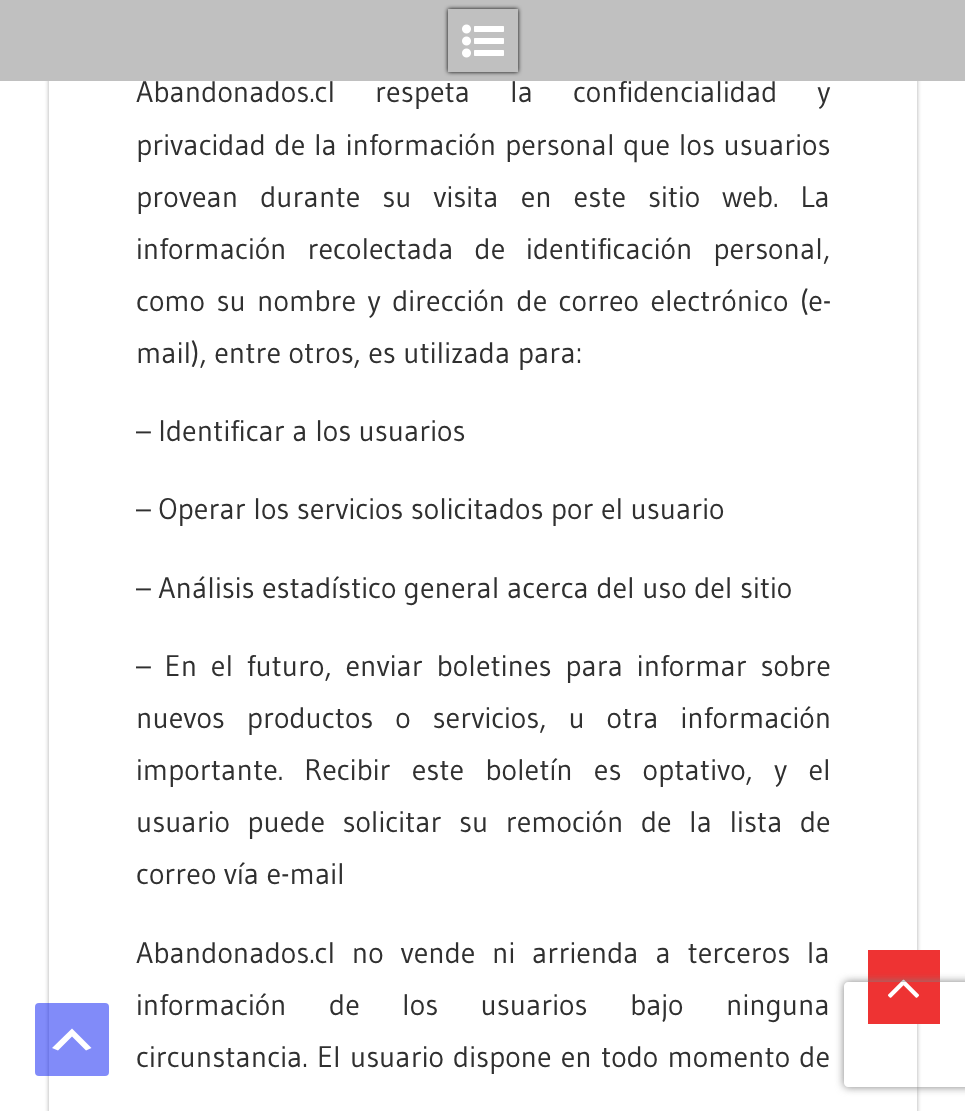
(async () => {
  const canvas = document.querySelector("canvas");
  canvas.width = 965;
  canvas.height = 1111;
  const ctx = canvas.getContext("2d");
  ctx.miterLimit = 4;
  ctx.fontKerning = "normal";
  async function loadImage(src) {
    const img = new Image();
    img.src = src;
    await img.decode();
    return img;
  }
  let path;

  ctx.fillStyle = "#ffffff";
  ctx.fillRect(0, 0, 965, 1111);
  ctx.save();
  path = new Path2D("M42 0H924V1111H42ZM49-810H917V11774H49Z");
  ctx.clip(path, "evenodd");
  ctx.fillStyle = "#aaaaaa";
  ctx.filter = "blur(2px)";
  ctx.beginPath();
  ctx.rect(49, -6, 868, 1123);
  ctx.fill();
  ctx.filter = "none";
  ctx.restore();
  ctx.fillStyle = "#ee3333";
  ctx.fillRect(868, 950, 72, 74);
  ctx.drawImage(await loadImage("img/2.png"), 888, 979, 31, 19);
  ctx.fillStyle = "rgba(4, 24, 244, 0.5)";
  ctx.beginPath();
  ctx.roundRect(35, 1003, 74, 73, 4);
  ctx.fill();
  ctx.fillStyle = "#ffffff";
  path = new Path2D("M86 1050.5L72 1036.5L58 1050.5L52 1048L72 1028.5L91.5 1048Z");
  ctx.fill(path);
  ctx.save();
  path = new Path2D("M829 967H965V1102H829ZM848 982H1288C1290 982 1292 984 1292 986V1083C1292 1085 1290 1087 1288 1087H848C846 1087 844 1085 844 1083V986C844 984 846 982 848 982Z");
  ctx.clip(path, "evenodd");
  ctx.fillStyle = "#808080";
  ctx.filter = "blur(4.5px)";
  ctx.beginPath();
  ctx.roundRect(844, 982, 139, 105, 4);
  ctx.fill();
  ctx.filter = "none";
  ctx.restore();
  ctx.wordSpacing = "32.5px";
  ctx.font = "29.75px Gudea";
  ctx.fillStyle = "#303030";
  ctx.fillText("Abandonados.cl respeta la confidencialidad y", 136, 102);
  ctx.fillStyle = "#c0c0c0";
  ctx.fillRect(0, 0, 965, 81);
  ctx.save();
  path = new Path2D("M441 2H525V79H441ZM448 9H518V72H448Z");
  ctx.clip(path, "evenodd");
  ctx.fillStyle = "#000000";
  ctx.filter = "blur(2px)";
  ctx.beginPath();
  ctx.rect(448, 9, 70, 63);
  ctx.fill();
  ctx.filter = "none";
  ctx.restore();
  ctx.drawImage(await loadImage("img/1.png"), 462, 24, 42, 34);
  ctx.wordSpacing = "1.25px";
  ctx.fillStyle = "#303030";
  ctx.fillText("privacidad de la información personal que los usuarios", 136, 155);
  ctx.wordSpacing = "14.5px";
  ctx.fillText("provean durante su visita en este sitio web. La", 136, 207);
  ctx.wordSpacing = "13.5px";
  ctx.fillText("información recolectada de identificación personal,", 136, 259);
  ctx.wordSpacing = "4px";
  ctx.fillText("como su nombre y dirección de correo electrónico (e-", 136, 311);
  ctx.wordSpacing = "0px";
  for (const [text, x, y] of [
    ["mail), entre otros, es utilizada para:", 136, 363],
    ["– Identificar a los usuarios", 136, 441],
    ["– Operar los servicios solicitados por el usuario", 136, 519],
    ["– Análisis estadístico general acerca del uso del sitio", 136, 598],
  ]) {
    ctx.fillText(text, x, y);
  }
  ctx.wordSpacing = "6.25px";
  ctx.fillText("– En el futuro, enviar boletines para informar sobre", 136, 676);
  ctx.wordSpacing = "14.5px";
  ctx.fillText("nuevos productos o servicios, u otra información", 136, 728);
  ctx.wordSpacing = "13.75px";
  ctx.fillText("importante. Recibir este boletín es optativo, y el", 136, 780);
  ctx.wordSpacing = "10px";
  ctx.fillText("usuario puede solicitar su remoción de la lista de", 136, 832);
  ctx.wordSpacing = "0px";
  ctx.fillText("correo vía e-mail", 136, 884);
  ctx.wordSpacing = "9.25px";
  ctx.fillText("Abandonados.cl no vende ni arrienda a terceros la", 136, 963);
  ctx.wordSpacing = "35px";
  ctx.fillText("información de los usuarios bajo ninguna", 136, 1015);
  ctx.wordSpacing = "1.75px";
  ctx.fillText("circunstancia. El usuario dispone en todo momento de", 136, 1067);
})();
